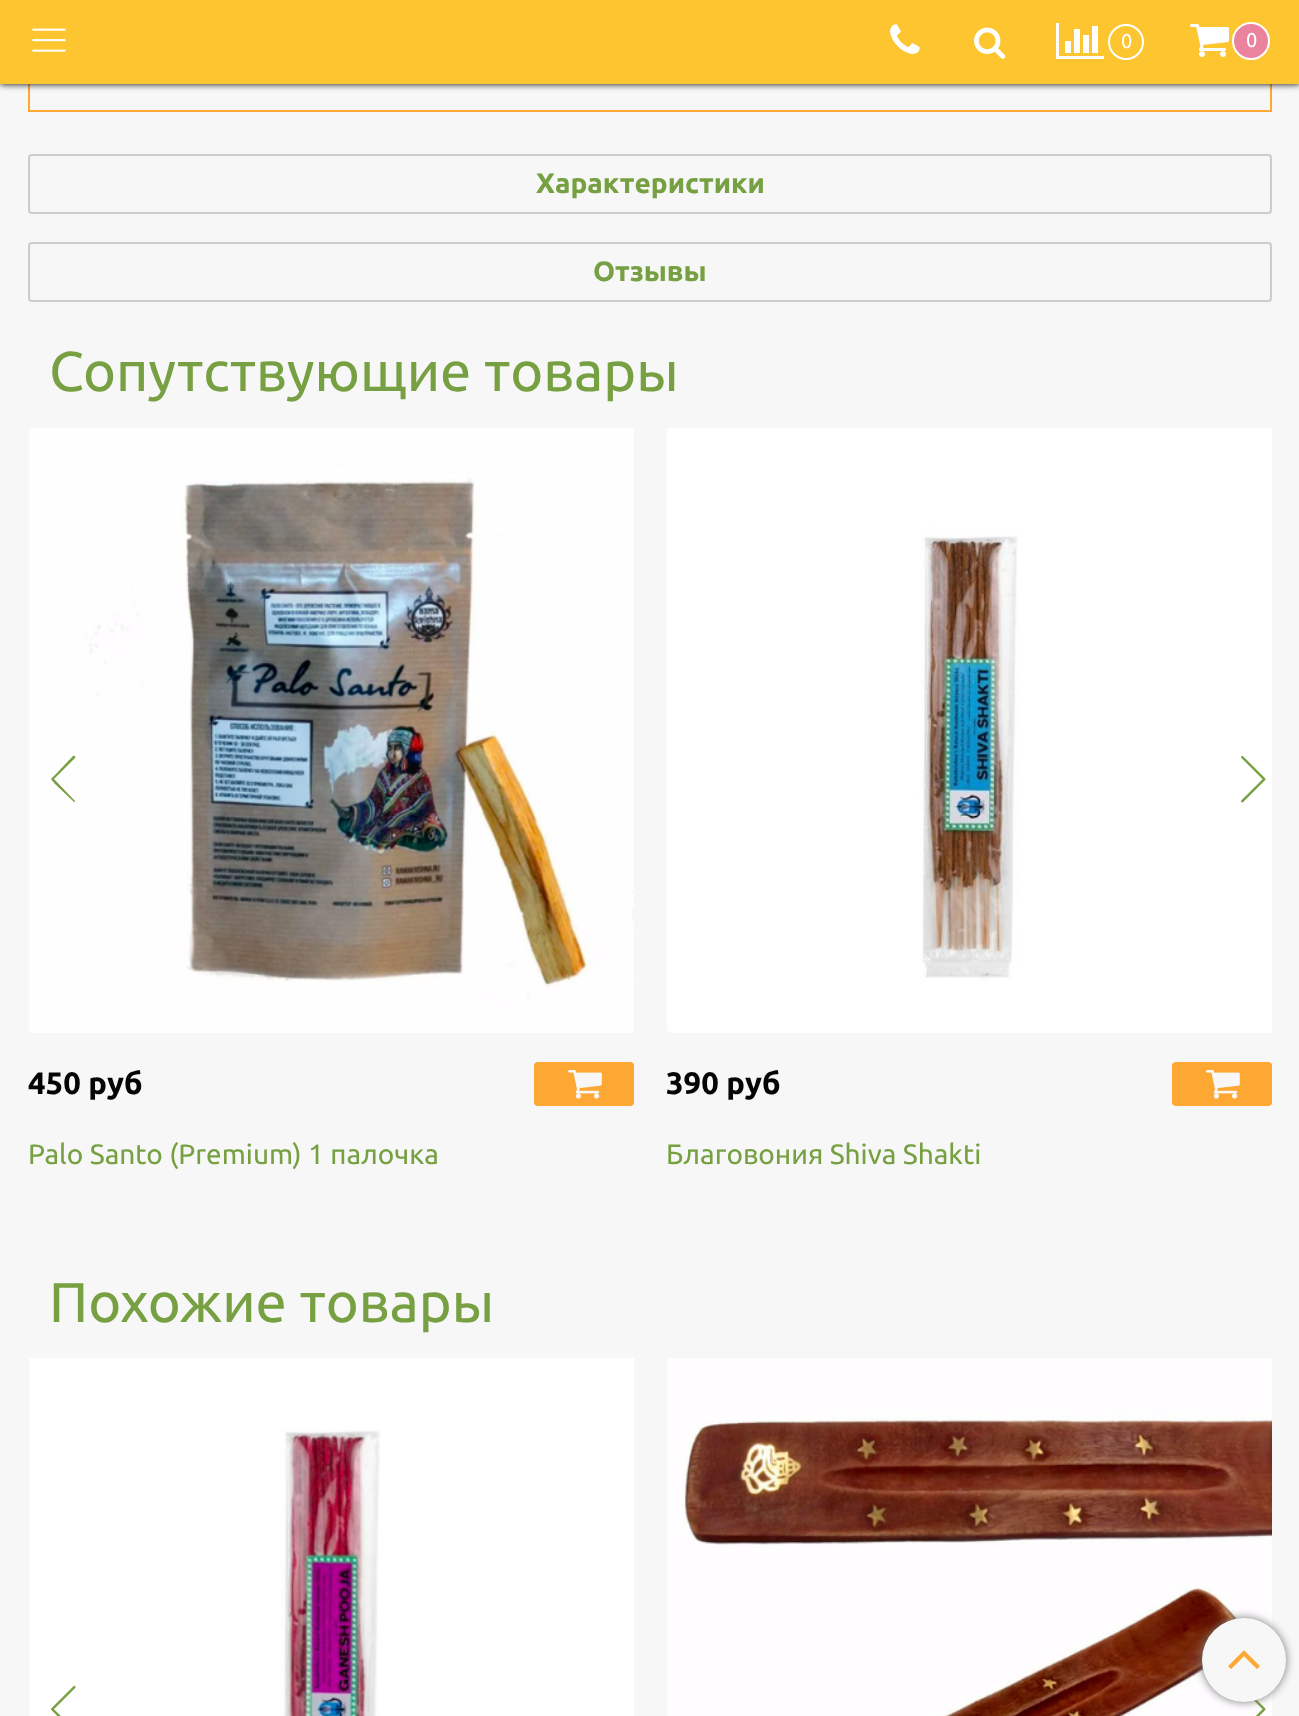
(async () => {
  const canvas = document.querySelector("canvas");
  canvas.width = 1299;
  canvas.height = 1716;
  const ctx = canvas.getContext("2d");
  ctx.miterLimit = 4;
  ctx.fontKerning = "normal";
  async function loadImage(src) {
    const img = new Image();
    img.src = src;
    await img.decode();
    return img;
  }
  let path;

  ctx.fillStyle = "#f7f7f7";
  ctx.fillRect(0, 0, 1299, 1716);
  for (const [x, y, w, h, color] of [
    [1270, 84, 2, 28, "#fda833"],
    [28, 110, 1244, 2, "#fda833"],
    [28, 84, 2, 28, "#fda833"],
  ]) {
    ctx.fillStyle = color;
    ctx.fillRect(x, y, w, h);
  }
  ctx.fillStyle = "#000000";
  ctx.filter = "blur(3.5px)";
  ctx.beginPath();
  ctx.rect(0, 0, 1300, 84);
  ctx.fill();
  ctx.filter = "none";
  ctx.fillStyle = "#fdc630";
  ctx.fillRect(0, 0, 1299, 84);
  ctx.drawImage(await loadImage("img/1.png"), 32, 28, 34, 24);
  ctx.drawImage(await loadImage("img/2.png"), 890, 24, 30, 30);
  ctx.drawImage(await loadImage("img/3.png"), 974, 27, 32, 32);
  ctx.drawImage(await loadImage("img/4.png"), 1056, 23, 48, 36);
  ctx.beginPath();
  ctx.arc(1126, 42, 17, 0, Math.PI * 2);
  ctx.strokeStyle = "#ffffff";
  ctx.lineWidth = 2;
  ctx.stroke();
  ctx.drawImage(await loadImage("img/5.png"), 1190, 24, 39, 33);
  ctx.fillStyle = "#eb839f";
  ctx.beginPath();
  ctx.arc(1251, 41, 18, 0, Math.PI * 2);
  ctx.fill();
  ctx.stroke();
  ctx.beginPath();
  ctx.roundRect(29, 155, 1242, 58, 3);
  ctx.strokeStyle = "#cccccc";
  ctx.stroke();
  ctx.beginPath();
  ctx.roundRect(29, 243, 1242, 58, 3);
  ctx.stroke();
  ctx.drawImage(await loadImage("img/7.png"), 29, 428, 605, 605);
  ctx.fillStyle = "#77a042";
  path = new Path2D("M74 802C75 802 76 801 75 801L54 779L75 758C76 757 75 755 73 756L55 775C50 780 50 778 55 784Z");
  ctx.fill(path);
  ctx.drawImage(await loadImage("img/9.png"), 667, 428, 605, 605);
  ctx.drawImage(await loadImage("img/6.png"), 1241, 755, 25, 48);
  ctx.fillStyle = "#fda833";
  ctx.beginPath();
  ctx.roundRect(534, 1062, 100, 44, 4);
  ctx.fill();
  ctx.drawImage(await loadImage("img/8.png"), 568, 1070, 34, 29);
  ctx.beginPath();
  ctx.roundRect(1172, 1062, 100, 44, 4);
  ctx.fill();
  ctx.drawImage(await loadImage("img/8.png"), 1206, 1070, 34, 29);
  ctx.drawImage(await loadImage("img/12.png"), 29, 1358, 605, 358);
  ctx.drawImage(await loadImage("img/10.png"), 51, 1685, 25, 31);
  ctx.drawImage(await loadImage("img/13.png"), 667, 1358, 605, 358);
  ctx.drawImage(await loadImage("img/11.png"), 1253, 1699, 13, 17);
  ctx.fillStyle = "#777777";
  ctx.filter = "blur(5px)";
  ctx.beginPath();
  ctx.roundRect(1202, 1618, 84, 84, 42);
  ctx.fill();
  ctx.filter = "none";
  ctx.fillStyle = "#f7f7f7";
  ctx.beginPath();
  ctx.arc(1244, 1660, 42, 0, Math.PI * 2);
  ctx.fill();
  ctx.drawImage(await loadImage("img/14.png"), 1228, 1650, 32, 19);
  ctx.font = "20px Ubuntu";
  ctx.fillStyle = "#ffffff";
  ctx.fillText("0", 1121, 48);
  ctx.fillText("0", 1246, 47);
  ctx.font = "bold 28px Ubuntu";
  ctx.fillStyle = "#77a042";
  ctx.fillText("Характеристики", 536, 193);
  ctx.fillText("Отзывы", 593, 281);
  ctx.font = "56px Ubuntu";
  ctx.fillText("Сопутствующие товары", 49, 391);
  ctx.font = "bold 31px Ubuntu";
  ctx.fillStyle = "#060505";
  ctx.fillText("450 руб", 28, 1094);
  ctx.font = "28px Ubuntu";
  ctx.fillStyle = "#77a042";
  ctx.fillText("Palo Santo (Premium) 1 палочка", 28, 1164);
  ctx.font = "bold 31px Ubuntu";
  ctx.fillStyle = "#060505";
  ctx.fillText("390 руб", 666, 1094);
  ctx.font = "28px Ubuntu";
  ctx.fillStyle = "#77a042";
  ctx.fillText("Благовония Shiva Shakti", 666, 1164);
  ctx.font = "56px Ubuntu";
  ctx.fillText("Похожие товары", 49, 1322);
})();
